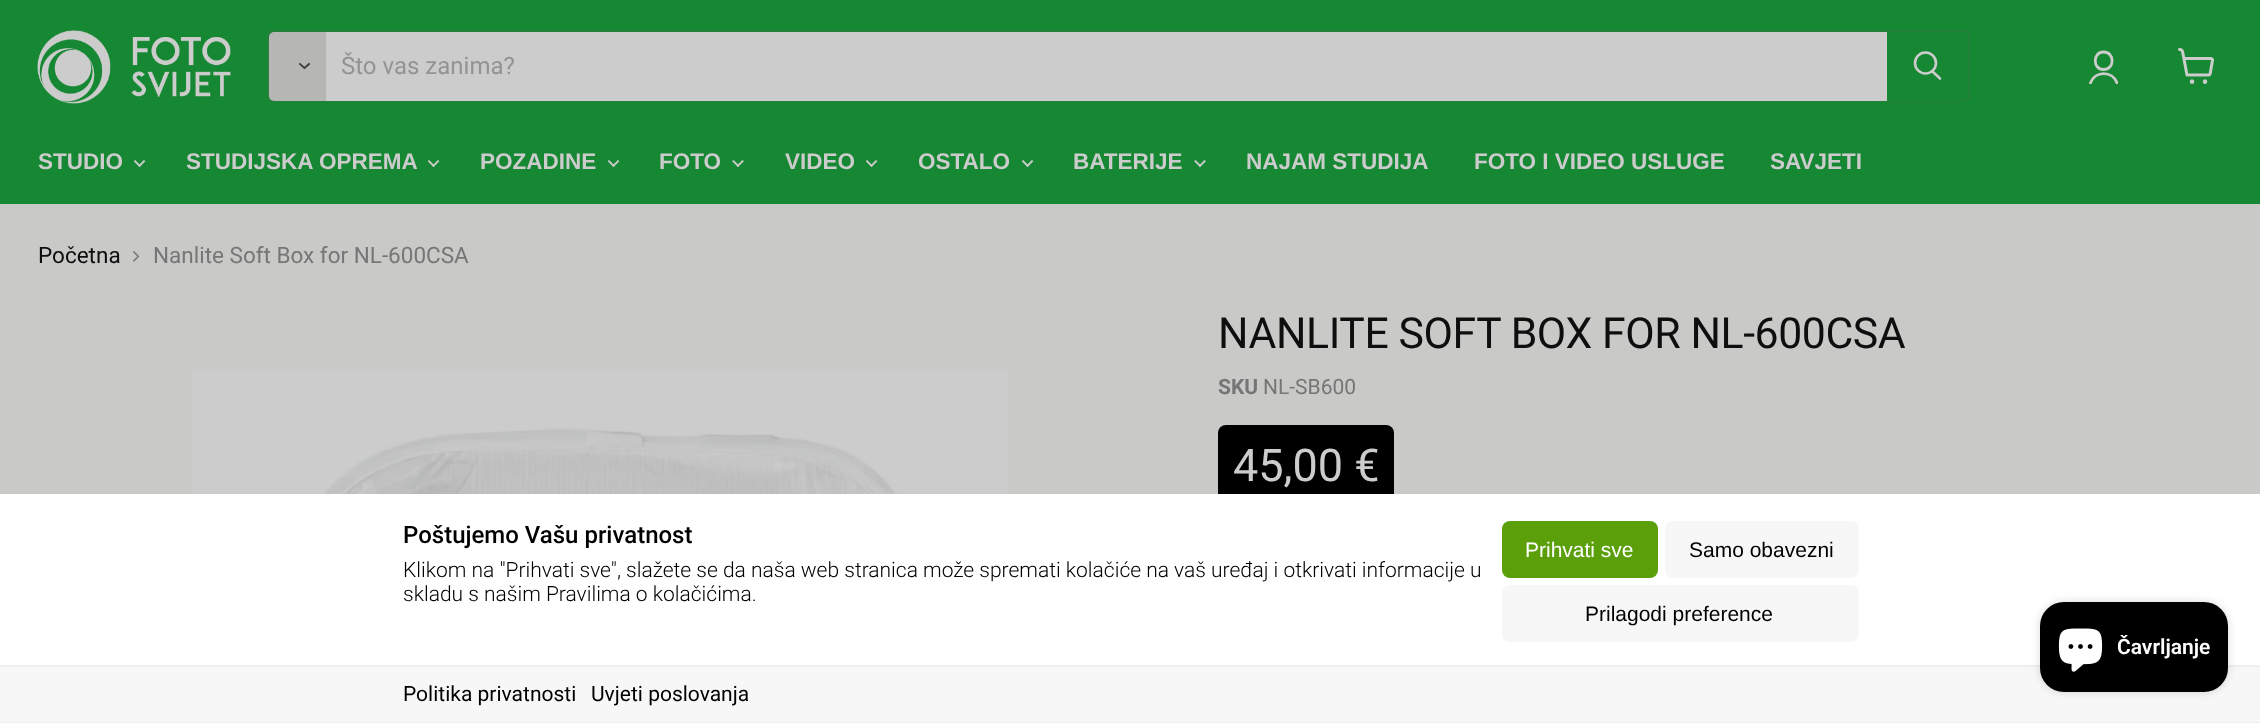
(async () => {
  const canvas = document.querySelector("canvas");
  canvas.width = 2260;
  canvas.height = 723;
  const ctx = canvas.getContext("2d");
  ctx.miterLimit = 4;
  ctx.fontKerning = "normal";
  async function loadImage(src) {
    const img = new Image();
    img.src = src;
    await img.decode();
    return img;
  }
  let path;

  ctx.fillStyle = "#c9c9c7";
  ctx.fillRect(0, 0, 2260, 723);
  ctx.fillStyle = "#168732";
  ctx.fillRect(0, 0, 2260, 204);
  ctx.drawImage(await loadImage("img/1.png"), 37, 30, 194, 74);
  ctx.beginPath();
  ctx.roundRect(268, 31, 1701, 70, 5);
  ctx.strokeStyle = "rgba(101, 101, 100, 0.2)";
  ctx.lineWidth = 2;
  ctx.stroke();
  ctx.fillStyle = "#b6b6b5";
  ctx.beginPath();
  ctx.roundRect(269, 32, 57, 69, [5, 0, 0, 5]);
  ctx.fill();
  path = new Path2D("M304.5 68L309 64M304.5 68L300 64");
  ctx.strokeStyle = "#3e3e3e";
  ctx.lineWidth = 1.9;
  ctx.lineCap = "square";
  ctx.stroke(path);
  ctx.fillStyle = "#cccccc";
  ctx.fillRect(326, 32, 1561, 69);
  ctx.fillStyle = "#168732";
  ctx.beginPath();
  ctx.roundRect(1888, 33, 79, 67, [0, 4, 4, 0]);
  ctx.fill();
  ctx.strokeStyle = "#168732";
  ctx.lineWidth = 2;
  ctx.stroke();
  path = new Path2D("M1940 78.5L1932.5 71.5");
  ctx.strokeStyle = "#cccccc";
  ctx.lineWidth = 2.6;
  ctx.lineCap = "round";
  ctx.stroke(path);
  ctx.beginPath();
  ctx.arc(1925.5, 63, 10.5, 0, Math.PI * 2);
  ctx.stroke();
  path = new Path2D("M2103.5 69.5C2115 69.5 2115 52 2103.5 52C2092.5 52 2092.5 69.5 2103.5 69.5Z");
  ctx.lineWidth = 2.8;
  ctx.lineJoin = "round";
  ctx.stroke(path);
  ctx.save();
  ctx.beginPath();
  ctx.rect(2088, 50, 30, 34);
  ctx.clip();
  path = new Path2D("M2117 83C2112.5 70.5 2095 70.5 2090.5 83");
  ctx.stroke(path);
  ctx.restore();
  ctx.drawImage(await loadImage("img/2.png"), 2178, 48, 36, 36);
  ctx.drawImage(await loadImage("img/3.png"), 134, 160, 12, 7);
  ctx.drawImage(await loadImage("img/3.png"), 428, 160, 12, 7);
  ctx.drawImage(await loadImage("img/3.png"), 608, 160, 12, 7);
  ctx.drawImage(await loadImage("img/4.png"), 732, 160, 12, 7);
  ctx.drawImage(await loadImage("img/3.png"), 866, 160, 12, 7);
  ctx.drawImage(await loadImage("img/3.png"), 1022, 160, 12, 7);
  ctx.drawImage(await loadImage("img/4.png"), 1194, 160, 12, 7);
  ctx.drawImage(await loadImage("img/5.png"), 133, 251, 7, 11);
  ctx.drawImage(await loadImage("img/6.png"), 192, 369, 816, 125);
  ctx.fillStyle = "#000000";
  ctx.beginPath();
  ctx.roundRect(1218, 425, 176, 82, 8);
  ctx.fill();
  ctx.fillStyle = "#ffffff";
  ctx.fillRect(0, 494, 2260, 171);
  ctx.fillStyle = "#5ba00b";
  ctx.beginPath();
  ctx.roundRect(1502, 521, 156, 57, 8);
  ctx.fill();
  ctx.fillStyle = "#f7f7f7";
  ctx.beginPath();
  ctx.roundRect(1665, 521, 194, 57, 8);
  ctx.fill();
  ctx.beginPath();
  ctx.roundRect(1502, 585, 357, 57, 8);
  ctx.fill();
  for (const [x, y, w, h, color] of [
    [0, 667, 2260, 55, "#f7f7f7"],
    [0, 665, 2260, 2, "#eeeeee"],
    [0, 722, 2260, 1, "#eeeeee"],
  ]) {
    ctx.fillStyle = color;
    ctx.fillRect(x, y, w, h);
  }
  ctx.fillStyle = "rgba(0, 0, 0, 0.15)";
  ctx.filter = "blur(4px)";
  ctx.beginPath();
  ctx.roundRect(2040, 602, 188, 90, 24);
  ctx.fill();
  ctx.filter = "none";
  ctx.fillStyle = "#000000";
  ctx.beginPath();
  ctx.roundRect(2040, 602, 188, 90, 24);
  ctx.fill();
  ctx.drawImage(await loadImage("img/7.png"), 2058, 628, 45, 44);
  ctx.font = "24px Roboto";
  ctx.fillStyle = "#939393";
  ctx.fillText("Što vas zanima?", 341, 74);
  ctx.font = "bold 22.5px Liberation Sans";
  ctx.fillStyle = "#cccccc";
  for (const [text, x, y] of [
    ["STUDIO", 38, 169],
    ["STUDIJSKA OPREMA", 186, 169],
    ["POZADINE", 480, 169],
    ["FOTO", 659, 169],
    ["VIDEO", 785, 169],
    ["OSTALO", 918, 169],
    ["BATERIJE", 1073, 169],
    ["NAJAM STUDIJA", 1246, 169],
    ["FOTO I VIDEO USLUGE", 1474, 169],
    ["SAVJETI", 1770, 169],
  ]) {
    ctx.fillText(text, x, y);
  }
  ctx.font = "22.5px Roboto";
  ctx.fillStyle = "#0e0e0e";
  ctx.fillText("Početna", 38, 263);
  ctx.fillStyle = "#767676";
  ctx.fillText("Nanlite Soft Box for NL-600CSA", 153, 263);
  ctx.letterSpacing = "-0.4px";
  ctx.font = "42.75px Roboto";
  ctx.fillStyle = "#0e0e0e";
  ctx.fillText("NANLITE SOFT BOX FOR NL-600CSA", 1218, 348);
  ctx.letterSpacing = "0px";
  ctx.font = "bold 21px Roboto";
  ctx.fillStyle = "#767676";
  ctx.fillText("SKU", 1218, 394);
  ctx.font = "21px Roboto";
  ctx.fillText("NL-SB600", 1263, 394);
  ctx.font = "45px Roboto";
  ctx.fillStyle = "#cccccc";
  ctx.fillText("45,00 €", 1233, 481);
  ctx.font = "500 24px Roboto";
  ctx.fillStyle = "#000000";
  ctx.fillText("Poštujemo Vašu privatnost", 403, 543);
  ctx.font = "300 21px Roboto";
  ctx.fillText("Klikom na \"Prihvati sve\", slažete se da naša web stranica može spremati kolačiće na vaš uređaj i otkrivati informacije u", 403, 577);
  ctx.fillText("skladu s našim Pravilima o kolačićima.", 403, 601);
  ctx.font = "21px Liberation Sans";
  ctx.fillStyle = "#ffffff";
  ctx.fillText("Prihvati sve", 1525, 557);
  ctx.fillStyle = "#000000";
  ctx.fillText("Samo obavezni", 1689, 557);
  ctx.fillText("Prilagodi preference", 1585, 621);
  ctx.font = "21px Roboto";
  ctx.fillText("Politika privatnosti", 403, 701);
  ctx.fillText("Uvjeti poslovanja", 591, 701);
  ctx.font = "600 21px Roboto";
  ctx.fillStyle = "#ffffff";
  ctx.fillText("Čavrljanje", 2117, 654);
})();
